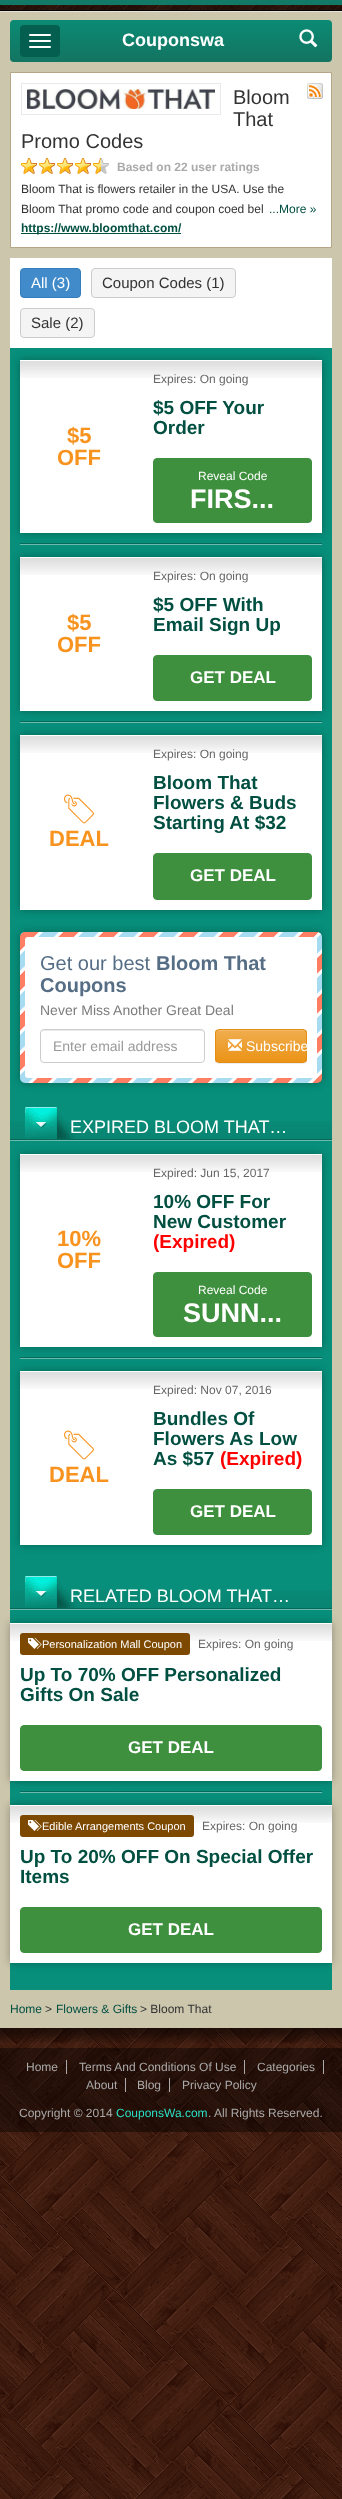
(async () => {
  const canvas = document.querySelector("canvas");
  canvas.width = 342;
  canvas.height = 2499;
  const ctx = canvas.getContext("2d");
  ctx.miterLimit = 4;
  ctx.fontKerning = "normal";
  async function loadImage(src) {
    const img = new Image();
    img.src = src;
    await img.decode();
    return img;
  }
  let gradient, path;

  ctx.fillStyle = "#ffffff";
  ctx.fillRect(0, 0, 342, 2499);
  ctx.drawImage(await loadImage("img/1.png"), 0, 5, 342, 2494);
  ctx.drawImage(await loadImage("img/2.png"), 0, 0, 342, 10);
  ctx.fillStyle = "#ccc6ac";
  ctx.fillRect(0, 12, 342, 2016);
  ctx.drawImage(await loadImage("img/3.png"), 0, 10, 342, 2);
  gradient = ctx.createLinearGradient(171, 20, 171, 62);
  gradient.addColorStop(0, "#0b8b74");
  gradient.addColorStop(1, "#137461");
  ctx.fillStyle = gradient;
  ctx.beginPath();
  ctx.roundRect(10, 20, 322, 42, 4);
  ctx.fill();
  ctx.fillStyle = "#045f50";
  ctx.beginPath();
  ctx.roundRect(20, 25, 40, 32, 4);
  ctx.fill();
  ctx.fillStyle = "#ffffff";
  ctx.beginPath();
  ctx.roundRect(29, 34, 22, 2, 1);
  ctx.fill();
  ctx.beginPath();
  ctx.roundRect(29, 40, 22, 2, 1);
  ctx.fill();
  ctx.beginPath();
  ctx.roundRect(29, 46, 22, 2, 1);
  ctx.fill();
  ctx.drawImage(await loadImage("img/4.png"), 299, 29, 19, 19);
  ctx.beginPath();
  ctx.rect(10.5, 72.5, 321, 175);
  ctx.fill();
  ctx.strokeStyle = "#b5a687";
  ctx.stroke();
  ctx.strokeStyle = "#e9e9e9";
  ctx.strokeRect(21.5, 83.5, 199, 31);
  ctx.drawImage(await loadImage("img/5.png"), 27, 89, 188, 20);
  ctx.drawImage(await loadImage("img/6.png"), 307, 83, 16, 16);
  ctx.drawImage(await loadImage("img/7.png"), 21, 158, 88, 16);
  ctx.fillStyle = "#014f41";
  ctx.fillRect(21, 233, 160, 1);
  ctx.fillStyle = "#078f7b";
  ctx.fillRect(10, 348, 322, 1642);
  ctx.drawImage(await loadImage("img/8.png"), 20, 543, 302, 2);
  ctx.fillStyle = "rgba(0, 0, 0, 0.3)";
  ctx.filter = "blur(4px)";
  ctx.beginPath();
  ctx.rect(20, 360, 302, 173);
  ctx.fill();
  ctx.filter = "none";
  ctx.fillStyle = "#ffffff";
  ctx.fillRect(10, 258, 322, 90);
  ctx.fillStyle = "#428bca";
  ctx.beginPath();
  ctx.roundRect(20.5, 268.5, 60, 29, 3.5);
  ctx.fill();
  ctx.strokeStyle = "#357ebd";
  ctx.stroke();
  ctx.fillStyle = "#f4f4f4";
  ctx.beginPath();
  ctx.roundRect(91.5, 268.5, 144, 29, 3.5);
  ctx.fill();
  ctx.strokeStyle = "#cccccc";
  ctx.stroke();
  ctx.beginPath();
  ctx.roundRect(20.5, 308.5, 74, 29, 3.5);
  ctx.fill();
  ctx.stroke();
  ctx.fillStyle = "#ffffff";
  ctx.fillRect(20, 360, 302, 173);
  ctx.drawImage(await loadImage("img/9.png"), 20, 361, 302, 17);
  ctx.fillStyle = "#3e8f3e";
  ctx.beginPath();
  ctx.roundRect(153.5, 458.5, 158, 64, 3.5);
  ctx.fill();
  ctx.strokeStyle = "#3e8f3e";
  ctx.stroke();
  ctx.drawImage(await loadImage("img/8.png"), 20, 721, 302, 2);
  ctx.fillStyle = "rgba(0, 0, 0, 0.3)";
  ctx.filter = "blur(4px)";
  ctx.beginPath();
  ctx.rect(20, 557, 302, 154);
  ctx.fill();
  ctx.filter = "none";
  ctx.fillStyle = "#ffffff";
  ctx.fillRect(20, 557, 302, 154);
  ctx.drawImage(await loadImage("img/9.png"), 20, 558, 302, 17);
  ctx.fillStyle = "#3e8f3e";
  ctx.beginPath();
  ctx.roundRect(153.5, 655.5, 158, 45, 3.5);
  ctx.fill();
  ctx.stroke();
  ctx.fillStyle = "rgba(0, 0, 0, 0.3)";
  ctx.filter = "blur(4px)";
  ctx.beginPath();
  ctx.rect(20, 735, 302, 175);
  ctx.fill();
  ctx.filter = "none";
  ctx.fillStyle = "#ffffff";
  ctx.fillRect(20, 735, 302, 175);
  ctx.drawImage(await loadImage("img/9.png"), 20, 736, 302, 17);
  ctx.drawImage(await loadImage("img/10.png"), 64, 794, 30, 30);
  ctx.fillStyle = "#3e8f3e";
  ctx.beginPath();
  ctx.roundRect(153.5, 853.5, 158, 46, 3.5);
  ctx.fill();
  ctx.stroke();
  ctx.fillStyle = "rgba(0, 0, 0, 0.3)";
  ctx.filter = "blur(4px)";
  ctx.beginPath();
  ctx.roundRect(20, 932, 302, 151, 5);
  ctx.fill();
  ctx.filter = "none";
  ctx.drawImage(await loadImage("img/11.png"), 20, 932, 302, 151);
  ctx.fillStyle = "#ffffff";
  ctx.beginPath();
  ctx.roundRect(25, 937, 292, 141, 3);
  ctx.fill();
  ctx.fillStyle = "#ececec";
  path = new Path2D("M44 1031H201C203 1031 204 1032 204 1034C204 1032 203 1030 201 1030H44C42 1030 41 1032 41 1034C41 1032 42 1031 44 1031Z");
  ctx.fill(path);
  ctx.beginPath();
  ctx.roundRect(40.5, 1029.5, 164, 33, 3.5);
  ctx.strokeStyle = "#cccccc";
  ctx.stroke();
  ctx.fillStyle = "rgba(0, 0, 0, 0.07)";
  ctx.filter = "blur(0.5px)";
  ctx.beginPath();
  ctx.roundRect(215, 1030, 92, 34, 4);
  ctx.fill();
  ctx.filter = "none";
  ctx.save();
  ctx.beginPath();
  ctx.roundRect(215, 1029, 92, 34, 4);
  ctx.clip();
  gradient = ctx.createLinearGradient(261, 1030, 261, 1062);
  gradient.addColorStop(0, "#f0ad4e");
  gradient.addColorStop(1, "#eb9316");
  ctx.fillStyle = gradient;
  ctx.fillRect(215, 1030, 92, 32);
  ctx.restore();
  ctx.fillStyle = "#f2b968";
  path = new Path2D("M219 1031H303C305 1031 306 1032 306 1034C306 1026 293 1030 289 1030H233C229 1030 216 1026 216 1034C216 1032 217 1031 219 1031Z");
  ctx.fill(path);
  ctx.beginPath();
  ctx.roundRect(215.5, 1029.5, 91, 33, 3.5);
  ctx.strokeStyle = "#e38d13";
  ctx.stroke();
  ctx.drawImage(await loadImage("img/12.png"), 228, 1039, 14, 12);
  ctx.drawImage(await loadImage("img/13.png"), 10, 1121, 322, 18);
  ctx.drawImage(await loadImage("img/14.png"), 25, 1107, 50, 32);
  ctx.drawImage(await loadImage("img/15.png"), 10, 1139, 322, 2);
  ctx.drawImage(await loadImage("img/8.png"), 20, 1357, 302, 2);
  ctx.fillStyle = "rgba(0, 0, 0, 0.3)";
  ctx.filter = "blur(4px)";
  ctx.beginPath();
  ctx.rect(20, 1154, 302, 193);
  ctx.fill();
  ctx.filter = "none";
  ctx.fillStyle = "#ffffff";
  ctx.fillRect(20, 1154, 302, 193);
  ctx.drawImage(await loadImage("img/9.png"), 20, 1155, 302, 17);
  ctx.fillStyle = "#3e8f3e";
  ctx.beginPath();
  ctx.roundRect(153.5, 1272.5, 158, 64, 3.5);
  ctx.fill();
  ctx.strokeStyle = "#3e8f3e";
  ctx.stroke();
  ctx.fillStyle = "rgba(0, 0, 0, 0.3)";
  ctx.filter = "blur(4px)";
  ctx.beginPath();
  ctx.rect(20, 1371, 302, 174);
  ctx.fill();
  ctx.filter = "none";
  ctx.fillStyle = "#ffffff";
  ctx.fillRect(20, 1371, 302, 174);
  ctx.drawImage(await loadImage("img/9.png"), 20, 1372, 302, 17);
  ctx.drawImage(await loadImage("img/10.png"), 64, 1430, 30, 30);
  ctx.fillStyle = "#3e8f3e";
  ctx.beginPath();
  ctx.roundRect(153.5, 1489.5, 158, 45, 3.5);
  ctx.fill();
  ctx.stroke();
  ctx.drawImage(await loadImage("img/13.png"), 10, 1590, 322, 18);
  ctx.drawImage(await loadImage("img/14.png"), 25, 1576, 50, 32);
  ctx.drawImage(await loadImage("img/15.png"), 10, 1608, 322, 2);
  ctx.drawImage(await loadImage("img/8.png"), 20, 1791, 302, 2);
  ctx.fillStyle = "rgba(0, 0, 0, 0.3)";
  ctx.filter = "blur(4px)";
  ctx.beginPath();
  ctx.rect(10, 1623, 322, 158);
  ctx.fill();
  ctx.filter = "none";
  ctx.fillStyle = "#ffffff";
  ctx.fillRect(10, 1623, 322, 158);
  ctx.drawImage(await loadImage("img/16.png"), 10, 1624, 322, 17);
  ctx.fillStyle = "#7d4900";
  ctx.beginPath();
  ctx.roundRect(20, 1633, 170, 22, 3);
  ctx.fill();
  ctx.drawImage(await loadImage("img/17.png"), 28, 1638, 14, 11);
  ctx.fillStyle = "#3e8f3e";
  ctx.beginPath();
  ctx.roundRect(20.5, 1725.5, 301, 45, 3.5);
  ctx.fill();
  ctx.stroke();
  ctx.fillStyle = "rgba(0, 0, 0, 0.3)";
  ctx.filter = "blur(4px)";
  ctx.beginPath();
  ctx.rect(10, 1805, 322, 158);
  ctx.fill();
  ctx.filter = "none";
  ctx.fillStyle = "#ffffff";
  ctx.fillRect(10, 1805, 322, 158);
  ctx.drawImage(await loadImage("img/16.png"), 10, 1806, 322, 17);
  ctx.fillStyle = "#7d4900";
  ctx.beginPath();
  ctx.roundRect(20, 1815, 174, 22, 3);
  ctx.fill();
  ctx.drawImage(await loadImage("img/17.png"), 28, 1820, 14, 11);
  ctx.fillStyle = "#3e8f3e";
  ctx.beginPath();
  ctx.roundRect(20.5, 1907.5, 301, 45, 3.5);
  ctx.fill();
  ctx.stroke();
  ctx.drawImage(await loadImage("img/18.png"), 0, 2028, 342, 15);
  for (const [x, y, w, h, color] of [
    [0, 2048, 342, 84, "rgba(0, 0, 0, 0.4)"],
    [66, 2060, 1, 14, "#aaaaaa"],
    [244, 2060, 1, 14, "#aaaaaa"],
    [323, 2060, 1, 14, "#aaaaaa"],
    [125, 2078, 1, 14, "#aaaaaa"],
    [169, 2078, 1, 14, "#aaaaaa"],
  ]) {
    ctx.fillStyle = color;
    ctx.fillRect(x, y, w, h);
  }
  ctx.font = "bold 18px Liberation Sans";
  ctx.fillStyle = "#ffffff";
  ctx.fillText("Couponswa", 122, 46);
  ctx.font = "20px Liberation Sans";
  ctx.fillStyle = "#333333";
  for (const [text, x, y] of [
    ["Bloom", 233, 104],
    ["That", 233, 126],
    ["Promo Codes", 21, 148],
  ]) {
    ctx.fillText(text, x, y);
  }
  ctx.font = "bold 12px Liberation Sans";
  ctx.fillStyle = "#aaaaaa";
  ctx.fillText("Based on 22 user ratings", 117, 171);
  ctx.font = "12px Liberation Sans";
  ctx.fillStyle = "#333333";
  ctx.fillText("Bloom That is flowers retailer in the USA. Use the", 21, 193);
  ctx.fillText("Bloom That promo code and coupon coed bel", 21, 213);
  ctx.fillStyle = "#014f41";
  ctx.fillText("...More »", 269, 213);
  ctx.font = "bold 12px Liberation Sans";
  ctx.fillText("https://www.bloomthat.com/", 21, 232);
  ctx.font = "15px Liberation Sans";
  ctx.fillStyle = "#ffffff";
  ctx.fillText("All (3)", 31, 288);
  ctx.fillStyle = "#333333";
  ctx.fillText("Coupon Codes (1)", 102, 288);
  ctx.fillText("Sale (2)", 31, 328);
  ctx.font = "bold 22px Liberation Sans";
  ctx.fillStyle = "#f7931e";
  ctx.fillText("$5", 67, 443);
  ctx.fillText("OFF", 57, 465);
  ctx.font = "12px Liberation Sans";
  ctx.fillStyle = "#666666";
  ctx.fillText("Expires: On going", 153, 383);
  ctx.font = "bold 19px Liberation Sans";
  ctx.fillStyle = "#014f41";
  ctx.fillText("$5 OFF Your", 153, 414);
  ctx.fillText("Order", 153, 434);
  ctx.font = "12px Liberation Sans";
  ctx.fillStyle = "#ffffff";
  ctx.fillText("Reveal Code", 198, 480);
  ctx.font = "bold 27px Liberation Sans";
  ctx.fillText("FIRS...", 190, 508);
  ctx.font = "bold 22px Liberation Sans";
  ctx.fillStyle = "#f7931e";
  ctx.fillText("$5", 67, 630);
  ctx.fillText("OFF", 57, 652);
  ctx.font = "12px Liberation Sans";
  ctx.fillStyle = "#666666";
  ctx.fillText("Expires: On going", 153, 580);
  ctx.font = "bold 19px Liberation Sans";
  ctx.fillStyle = "#014f41";
  ctx.fillText("$5 OFF With", 153, 611);
  ctx.fillText("Email Sign Up", 153, 631);
  ctx.font = "bold 17px Liberation Sans";
  ctx.fillStyle = "#ffffff";
  ctx.fillText("GET DEAL", 190, 683);
  ctx.font = "bold 22px Liberation Sans";
  ctx.fillStyle = "#f7931e";
  ctx.fillText("DEAL", 49, 846);
  ctx.font = "12px Liberation Sans";
  ctx.fillStyle = "#666666";
  ctx.fillText("Expires: On going", 153, 758);
  ctx.font = "bold 19px Liberation Sans";
  ctx.fillStyle = "#014f41";
  for (const [text, x, y] of [
    ["Bloom That", 153, 789],
    ["Flowers & Buds", 153, 809],
    ["Starting At $32", 153, 829],
  ]) {
    ctx.fillText(text, x, y);
  }
  ctx.font = "bold 17px Liberation Sans";
  ctx.fillStyle = "#ffffff";
  ctx.fillText("GET DEAL", 190, 881);
  ctx.font = "20px Liberation Sans";
  ctx.fillStyle = "#566e85";
  ctx.fillText("Get our best", 40, 970);
  ctx.font = "bold 20px Liberation Sans";
  ctx.fillText("Bloom That", 156, 970);
  ctx.fillText("Coupons", 40, 992);
  ctx.font = "14px Liberation Sans";
  ctx.fillStyle = "#7c7c7c";
  ctx.fillText("Never Miss Another Great Deal", 40, 1015);
  ctx.fillStyle = "#999999";
  ctx.fillText("Enter email address", 53, 1051);
  ctx.fillStyle = "#ffffff";
  ctx.fillText("Subscribe", 246, 1051);
  ctx.font = "18px Liberation Sans";
  ctx.fillText("EXPIRED BLOOM THAT…", 70, 1133);
  ctx.font = "bold 22px Liberation Sans";
  ctx.fillStyle = "#f7931e";
  ctx.fillText("10%", 57, 1246);
  ctx.fillText("OFF", 57, 1268);
  ctx.font = "12px Liberation Sans";
  ctx.fillStyle = "#666666";
  ctx.fillText("Expired: Jun 15, 2017", 153, 1177);
  ctx.font = "bold 19px Liberation Sans";
  ctx.fillStyle = "#014f41";
  ctx.fillText("10% OFF For", 153, 1208);
  ctx.fillText("New Customer", 153, 1228);
  ctx.fillStyle = "#ff0000";
  ctx.fillText("(Expired)", 153, 1248);
  ctx.font = "12px Liberation Sans";
  ctx.fillStyle = "#ffffff";
  ctx.fillText("Reveal Code", 198, 1294);
  ctx.font = "bold 27px Liberation Sans";
  ctx.fillText("SUNN...", 183, 1322);
  ctx.font = "bold 22px Liberation Sans";
  ctx.fillStyle = "#f7931e";
  ctx.fillText("DEAL", 49, 1482);
  ctx.font = "12px Liberation Sans";
  ctx.fillStyle = "#666666";
  ctx.fillText("Expired: Nov 07, 2016", 153, 1394);
  ctx.font = "bold 19px Liberation Sans";
  ctx.fillStyle = "#014f41";
  for (const [text, x, y] of [
    ["Bundles Of", 153, 1425],
    ["Flowers As Low", 153, 1445],
    ["As $57", 153, 1465],
  ]) {
    ctx.fillText(text, x, y);
  }
  ctx.fillStyle = "#ff0000";
  ctx.fillText("(Expired)", 220, 1465);
  ctx.font = "bold 17px Liberation Sans";
  ctx.fillStyle = "#ffffff";
  ctx.fillText("GET DEAL", 190, 1517);
  ctx.font = "18px Liberation Sans";
  ctx.fillText("RELATED BLOOM THAT…", 70, 1602);
  ctx.font = "11px Liberation Sans";
  ctx.fillText("Personalization Mall Coupon", 42, 1648);
  ctx.font = "12px Liberation Sans";
  ctx.fillStyle = "#666666";
  ctx.fillText("Expires: On going", 198, 1648);
  ctx.font = "bold 19px Liberation Sans";
  ctx.fillStyle = "#014f41";
  ctx.fillText("Up To 70% OFF Personalized", 20, 1681);
  ctx.fillText("Gifts On Sale", 20, 1701);
  ctx.font = "bold 17px Liberation Sans";
  ctx.fillStyle = "#ffffff";
  ctx.fillText("GET DEAL", 128, 1753);
  ctx.font = "11px Liberation Sans";
  ctx.fillText("Edible Arrangements Coupon", 42, 1830);
  ctx.font = "12px Liberation Sans";
  ctx.fillStyle = "#666666";
  ctx.fillText("Expires: On going", 202, 1830);
  ctx.font = "bold 19px Liberation Sans";
  ctx.fillStyle = "#014f41";
  ctx.fillText("Up To 20% OFF On Special Offer", 20, 1863);
  ctx.fillText("Items", 20, 1883);
  ctx.font = "bold 17px Liberation Sans";
  ctx.fillStyle = "#ffffff";
  ctx.fillText("GET DEAL", 128, 1935);
  ctx.font = "12px Liberation Sans";
  ctx.fillStyle = "#014f41";
  ctx.fillText("Home", 10, 2013);
  ctx.fillStyle = "#333333";
  ctx.fillText(">", 45, 2013);
  ctx.fillStyle = "#014f41";
  ctx.fillText("Flowers & Gifts", 56, 2013);
  ctx.fillStyle = "#333333";
  ctx.fillText("> Bloom That", 140, 2013);
  ctx.fillStyle = "#aaaaaa";
  for (const [text, x, y] of [
    ["Home", 26, 2071],
    ["Terms And Conditions Of Use", 79, 2071],
    ["Categories", 257, 2071],
    ["About", 86, 2089],
    ["Blog", 137, 2089],
    ["Privacy Policy", 182, 2089],
    ["Copyright © 2014", 19, 2117],
  ]) {
    ctx.fillText(text, x, y);
  }
  ctx.fillStyle = "#2bdfc4";
  ctx.fillText("CouponsWa.com", 116, 2117);
  ctx.fillStyle = "#aaaaaa";
  ctx.fillText(". All Rights Reserved.", 208, 2117);
})();
